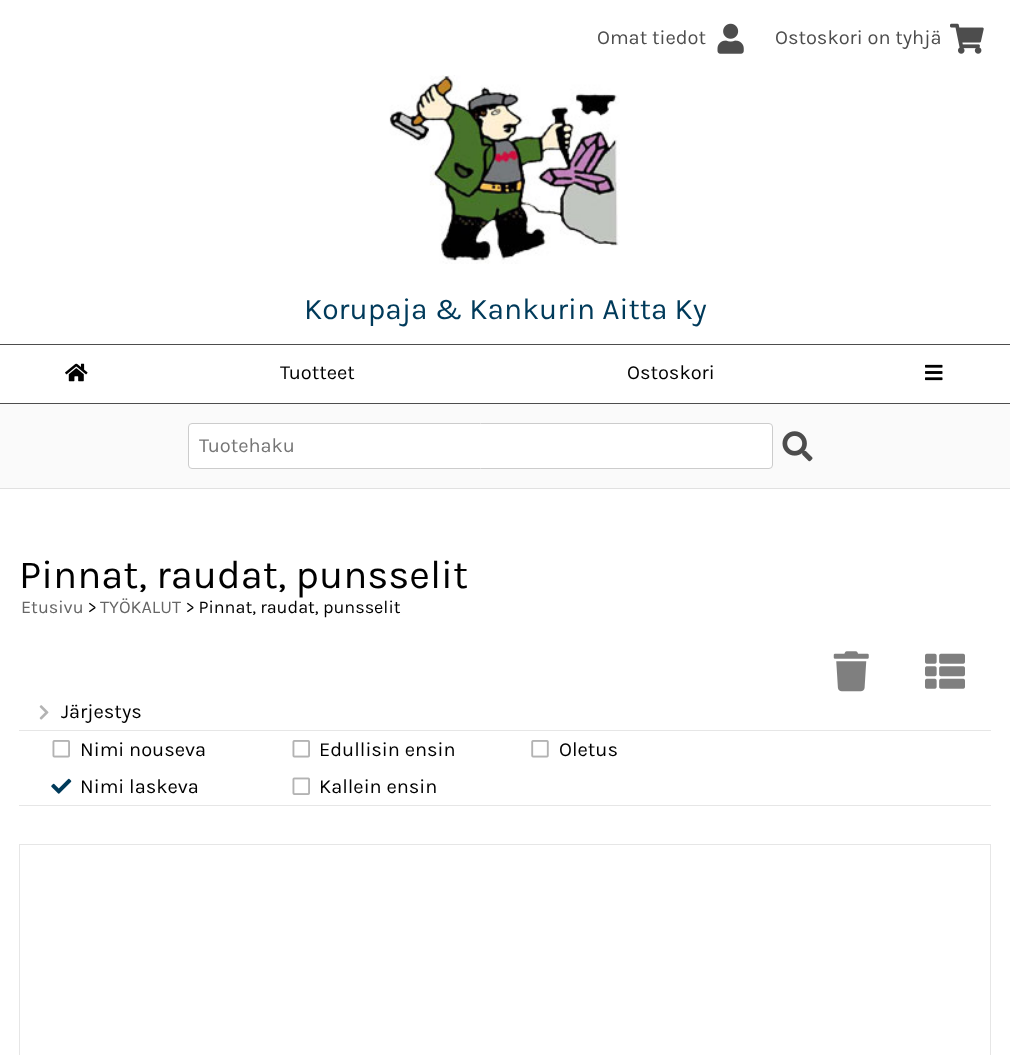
(async () => {
  const canvas = document.querySelector("canvas");
  canvas.width = 1010;
  canvas.height = 1055;
  const ctx = canvas.getContext("2d");
  ctx.miterLimit = 4;
  ctx.fontKerning = "normal";
  async function loadImage(src) {
    const img = new Image();
    img.src = src;
    await img.decode();
    return img;
  }

  ctx.fillStyle = "#ffffff";
  ctx.fillRect(0, 0, 1010, 1055);
  ctx.drawImage(await loadImage("img/1.png"), 717, 23, 27, 31);
  ctx.drawImage(await loadImage("img/2.png"), 950, 23, 34, 31);
  ctx.drawImage(await loadImage("img/3.png"), 389, 75, 231, 189);
  ctx.fillStyle = "#4d4d4d";
  ctx.fillRect(0, 344, 1010, 1);
  ctx.fillRect(0, 403, 1010, 1);
  ctx.drawImage(await loadImage("img/4.png"), 65, 363, 23, 19);
  ctx.drawImage(await loadImage("img/5.png"), 925, 364, 18, 17);
  ctx.fillStyle = "#fafafa";
  ctx.fillRect(0, 404, 1010, 84);
  ctx.fillStyle = "#e1e1e1";
  ctx.fillRect(0, 488, 1010, 1);
  ctx.fillStyle = "#ffffff";
  ctx.beginPath();
  ctx.roundRect(188.5, 423.5, 584, 45, 3.5);
  ctx.fill();
  ctx.strokeStyle = "#cccccc";
  ctx.stroke();
  ctx.drawImage(await loadImage("img/6.png"), 782, 431, 31, 31);
  ctx.drawImage(await loadImage("img/7.png"), 833, 651, 36, 41);
  ctx.drawImage(await loadImage("img/8.png"), 925, 653, 40, 36);
  ctx.fillStyle = "#e6e6e6";
  ctx.fillRect(19, 730, 972, 1);
  ctx.drawImage(await loadImage("img/9.png"), 39, 705, 10, 15);
  ctx.fillRect(19, 805, 972, 1);
  ctx.drawImage(await loadImage("img/10.png"), 52, 740, 18, 18);
  ctx.drawImage(await loadImage("img/10.png"), 292, 740, 18, 18);
  ctx.drawImage(await loadImage("img/11.png"), 531, 740, 18, 18);
  ctx.drawImage(await loadImage("img/12.png"), 51, 778, 21, 16);
  ctx.drawImage(await loadImage("img/13.png"), 292, 777, 18, 18);
  ctx.strokeStyle = "#e6e6e6";
  ctx.strokeRect(19.5, 844.5, 971, 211);
  ctx.font = "20px Karla";
  ctx.fillStyle = "#4d4d4d";
  ctx.fillText("Omat tiedot", 597, 44);
  ctx.fillText("Ostoskori on tyhjä", 775, 44);
  ctx.font = "30px Karla";
  ctx.fillStyle = "#003a5a";
  ctx.fillText("Korupaja & Kankurin Aitta Ky", 304, 319);
  ctx.font = "20px Karla";
  ctx.fillStyle = "#000000";
  ctx.fillText("Tuotteet", 280, 379);
  ctx.fillText("Ostoskori", 627, 379);
  ctx.fillStyle = "#757575";
  ctx.fillText("Tuotehaku", 199, 452);
  ctx.font = "40px Karla";
  ctx.fillStyle = "#000000";
  ctx.fillText("Pinnat, raudat, punsselit", 19, 588);
  ctx.font = "18px Karla";
  ctx.fillStyle = "#666666";
  ctx.fillText("Etusivu", 21, 613);
  ctx.fillStyle = "#000000";
  ctx.fillText(">", 88, 613);
  ctx.fillStyle = "#666666";
  ctx.fillText("TYÖKALUT", 100, 613);
  ctx.fillStyle = "#000000";
  ctx.fillText("> Pinnat, raudat, punsselit", 186, 613);
  ctx.font = "20px Karla";
  for (const [text, x, y] of [
    ["Järjestys", 61, 718],
    ["Nimi nouseva", 80, 756],
    ["Edullisin ensin", 319, 756],
    ["Oletus", 559, 756],
    ["Nimi laskeva", 80, 793],
    ["Kallein ensin", 319, 793],
  ]) {
    ctx.fillText(text, x, y);
  }
})();
